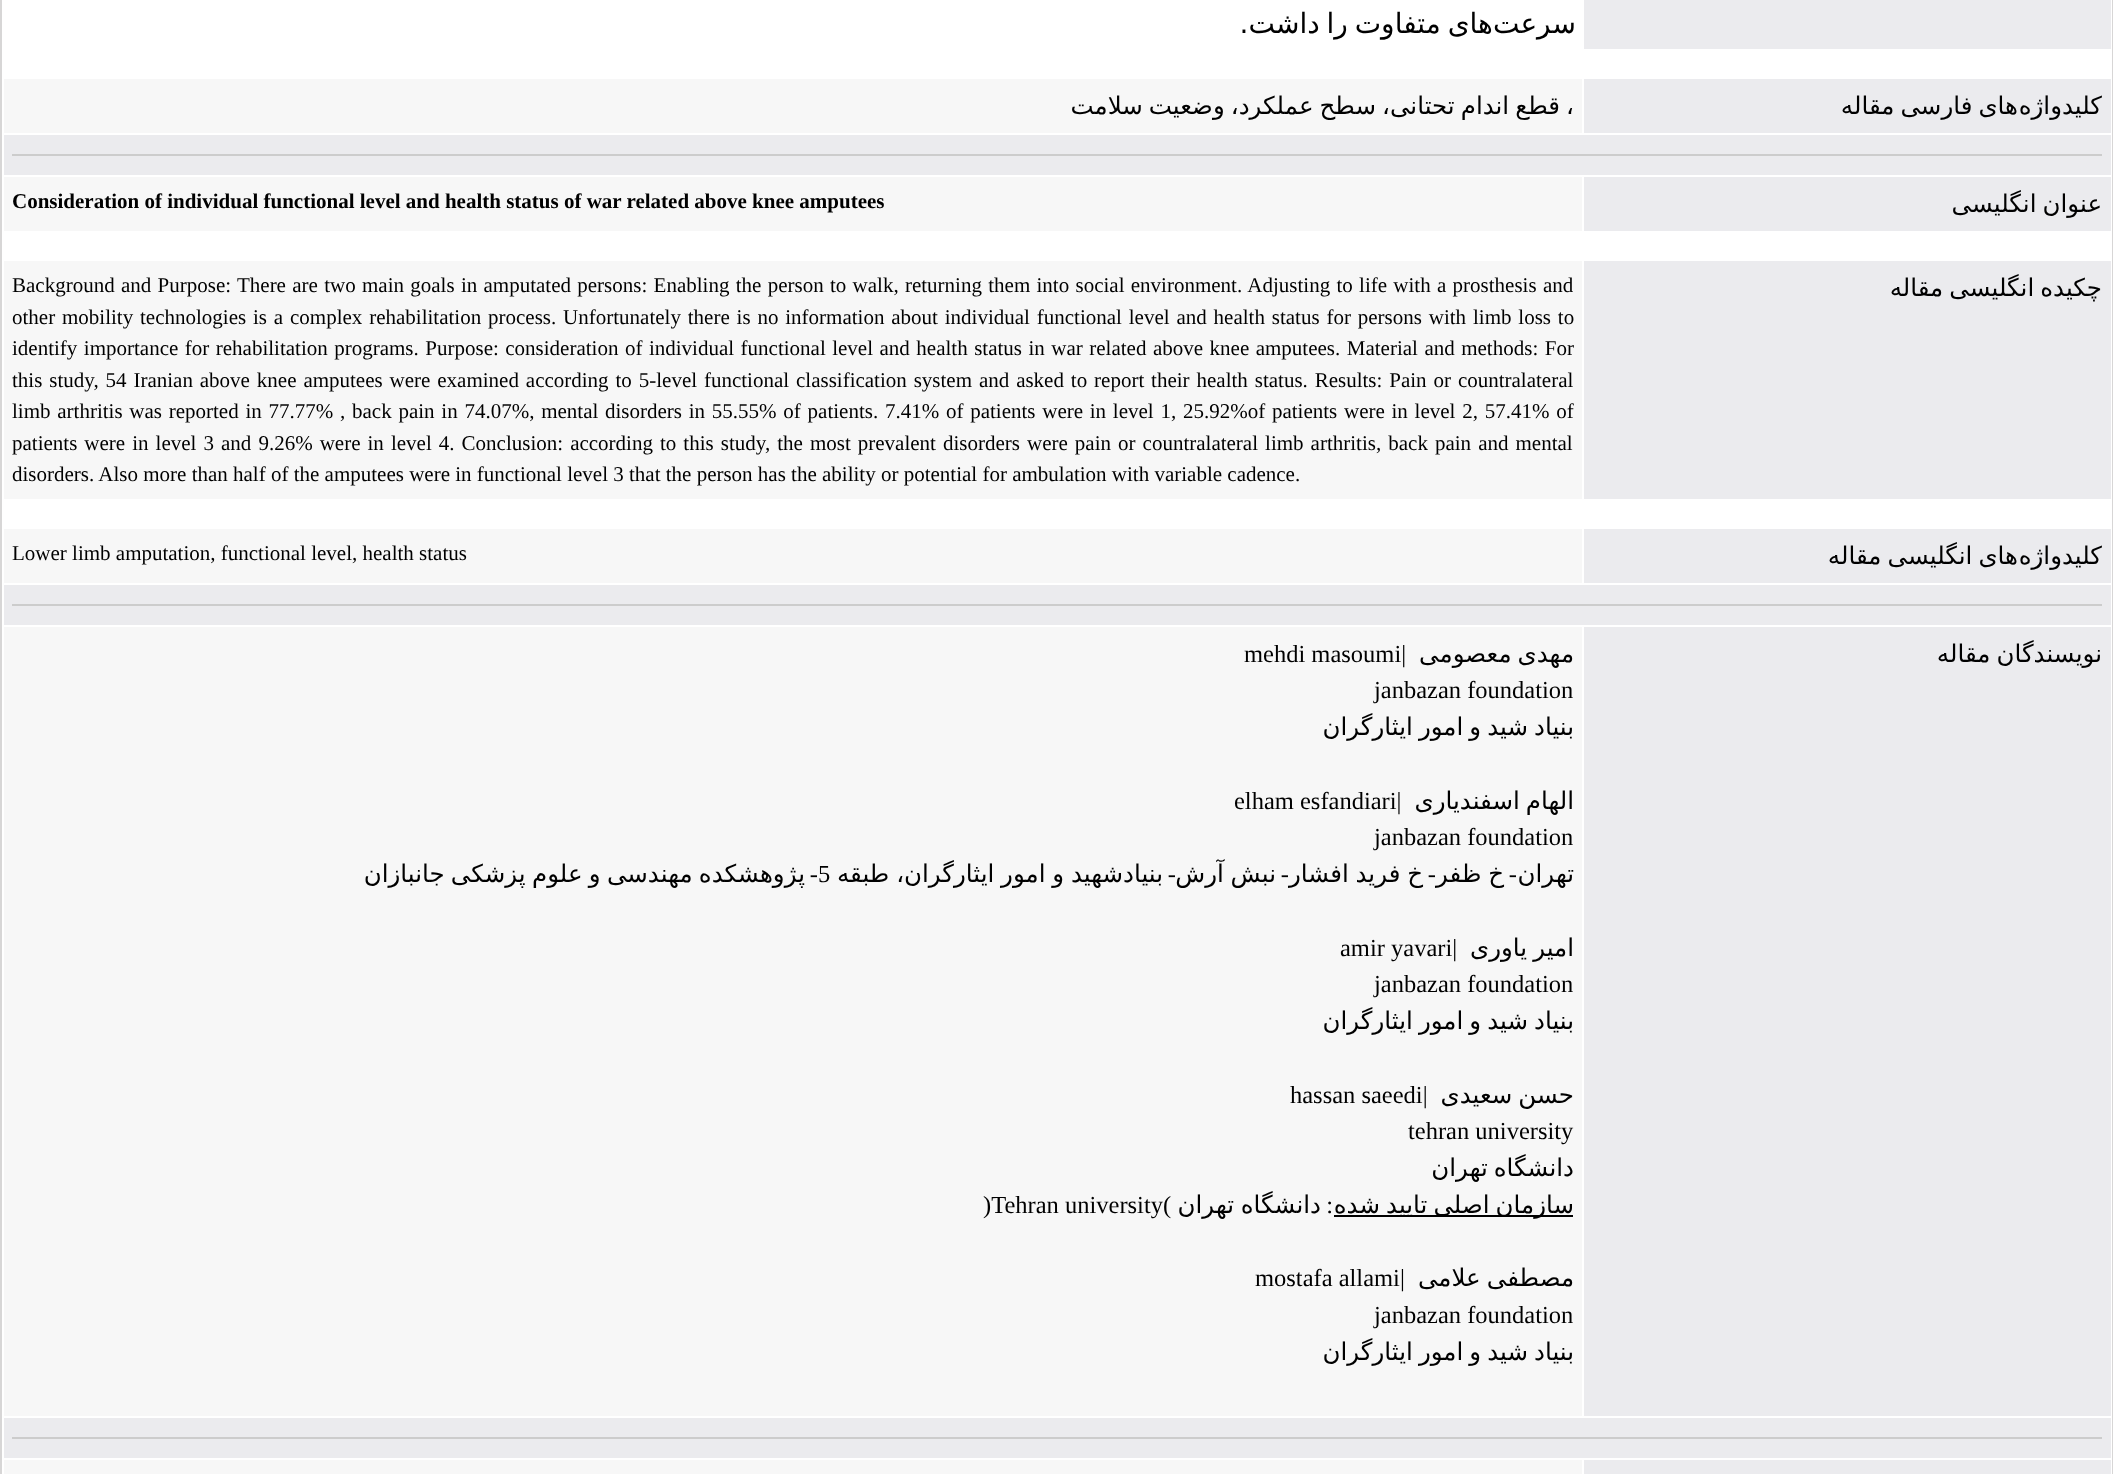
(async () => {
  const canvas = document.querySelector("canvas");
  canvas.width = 2113;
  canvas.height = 1474;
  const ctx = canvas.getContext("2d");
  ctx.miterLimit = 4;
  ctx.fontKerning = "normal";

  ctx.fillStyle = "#ffffff";
  ctx.fillRect(0, 0, 2113, 1474);
  ctx.strokeStyle = "#d7d6d6";
  ctx.lineWidth = 2;
  ctx.strokeRect(1, -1, 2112, 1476);
  for (const [x, y, w, h, color] of [
    [1584, 0, 527, 49, "#ebebee"],
    [4, 79, 1578, 54, "#f7f7f7"],
    [1584, 79, 527, 54, "#ebebee"],
    [4, 135, 2107, 40, "#ebebee"],
    [12, 154, 2090, 2, "#cccccc"],
    [4, 177, 1578, 54, "#f7f7f7"],
    [1584, 177, 527, 54, "#ebebee"],
    [4, 261, 1578, 238, "#f7f7f7"],
    [1584, 261, 527, 238, "#ebebee"],
    [4, 529, 1578, 54, "#f7f7f7"],
    [1584, 529, 527, 54, "#ebebee"],
    [4, 585, 2107, 40, "#ebebee"],
    [12, 604, 2090, 2, "#cccccc"],
    [4, 627, 1578, 789, "#f7f7f7"],
    [1334, 1215, 239, 2, "#000000"],
    [1584, 627, 527, 789, "#ebebee"],
    [4, 1418, 2107, 40, "#ebebee"],
    [12, 1437, 2090, 2, "#cccccc"],
    [4, 1460, 1578, 14, "#f7f7f7"],
    [1584, 1460, 527, 14, "#ebebee"],
  ]) {
    ctx.fillStyle = color;
    ctx.fillRect(x, y, w, h);
  }
  ctx.wordSpacing = "-2px";
  ctx.direction = "rtl";
  ctx.font = "28px DejaVu Sans";
  ctx.fillStyle = "#000000";
  ctx.fillText("سرعت‌های متفاوت را داشت.", 1576, 33);
  ctx.wordSpacing = "-1.75px";
  ctx.font = "24.5px DejaVu Sans";
  ctx.fillText("، قطع اندام تحتانی، سطح عملکرد، وضعیت سلامت", 1574, 114);
  ctx.fillText("های فارسی مقاله", 2018, 114);
  ctx.wordSpacing = "0px";
  ctx.fillText("کلیدواژه", 2102, 114);
  ctx.direction = "ltr";
  ctx.font = "bold 21px Liberation Serif";
  ctx.fillText("Consideration of individual functional level and health status of war related above knee amputees", 12, 208);
  ctx.wordSpacing = "-1.75px";
  ctx.direction = "rtl";
  ctx.font = "24.5px DejaVu Sans";
  ctx.fillText("عنوان انگلیسی", 2102, 212);
  ctx.wordSpacing = "1.05px";
  ctx.direction = "ltr";
  ctx.font = "21px Liberation Serif";
  ctx.fillText("Background and Purpose: There are two main goals in amputated persons: Enabling the person to walk, returning them into social environment. Adjusting to life with a prosthesis and", 12, 292);
  ctx.wordSpacing = "1.6px";
  ctx.fillText("other mobility technologies is a complex rehabilitation process. Unfortunately there is no information about individual functional level and health status for persons with limb loss to", 12, 324);
  ctx.wordSpacing = "1.25px";
  ctx.fillText("identify importance for rehabilitation programs. Purpose: consideration of individual functional level and health status in war related above knee amputees. Material and methods: For", 12, 355);
  ctx.wordSpacing = "1.65px";
  ctx.fillText("this study, 54 Iranian above knee amputees were examined according to 5-level functional classification system and asked to report their health status. Results: Pain or countralateral", 12, 387);
  ctx.wordSpacing = "1.5px";
  ctx.fillText("limb arthritis was reported in 77.77% , back pain in 74.07%, mental disorders in 55.55% of patients. 7.41% of patients were in level 1, 25.92%of patients were in level 2, 57.41% of", 12, 418);
  ctx.wordSpacing = "1.8px";
  ctx.fillText("patients were in level 3 and 9.26% were in level 4. Conclusion: according to this study, the most prevalent disorders were pain or countralateral limb arthritis, back pain and mental", 12, 450);
  ctx.wordSpacing = "0px";
  ctx.fillText("disorders. Also more than half of the amputees were in functional level 3 that the person has the ability or potential for ambulation with variable cadence.", 12, 481);
  ctx.wordSpacing = "-1.75px";
  ctx.direction = "rtl";
  ctx.font = "24.5px DejaVu Sans";
  ctx.fillText("چکیده انگلیسی مقاله", 2102, 296);
  ctx.wordSpacing = "0px";
  ctx.direction = "ltr";
  ctx.font = "21px Liberation Serif";
  ctx.fillText("Lower limb amputation, functional level, health status", 12, 560);
  ctx.wordSpacing = "-1.75px";
  ctx.direction = "rtl";
  ctx.font = "24.5px DejaVu Sans";
  ctx.fillText("های انگلیسی مقاله", 2018, 564);
  ctx.wordSpacing = "0px";
  ctx.fillText("کلیدواژه", 2102, 564);
  ctx.direction = "ltr";
  ctx.font = "24.5px Liberation Serif";
  ctx.fillText("mehdi masoumi|", 1244, 662);
  ctx.wordSpacing = "-1.75px";
  ctx.direction = "rtl";
  ctx.font = "24.5px DejaVu Sans";
  ctx.fillText("مهدی معصومی", 1574, 662);
  ctx.wordSpacing = "0px";
  ctx.direction = "ltr";
  ctx.font = "24.5px Liberation Serif";
  ctx.fillText("janbazan foundation", 1374, 698);
  ctx.wordSpacing = "-1.75px";
  ctx.direction = "rtl";
  ctx.font = "24.5px DejaVu Sans";
  ctx.fillText("بنیاد شید و امور ایثارگران", 1574, 735);
  ctx.wordSpacing = "0px";
  ctx.direction = "ltr";
  ctx.font = "24.5px Liberation Serif";
  ctx.fillText("elham esfandiari|", 1234, 809);
  ctx.wordSpacing = "-1.75px";
  ctx.direction = "rtl";
  ctx.font = "24.5px DejaVu Sans";
  ctx.fillText("الهام اسفندیاری", 1574, 809);
  ctx.wordSpacing = "0px";
  ctx.direction = "ltr";
  ctx.font = "24.5px Liberation Serif";
  ctx.fillText("janbazan foundation", 1374, 845);
  ctx.wordSpacing = "-1.5px";
  ctx.direction = "rtl";
  ctx.font = "24.5px DejaVu Sans";
  ctx.fillText("پژوهشکده مهندسی و علوم پزشکی جانبازان", 805, 882);
  ctx.wordSpacing = "0px";
  ctx.font = "24.5px Liberation Serif";
  ctx.fillText("-", 818, 882);
  ctx.direction = "ltr";
  ctx.fillText("5", 818, 882);
  ctx.wordSpacing = "-1px";
  ctx.direction = "rtl";
  ctx.font = "24.5px DejaVu Sans";
  ctx.fillText("بنیادشهید و امور ایثارگران، طبقه", 1163, 882);
  ctx.wordSpacing = "0px";
  ctx.font = "24.5px Liberation Serif";
  ctx.fillText("-", 1176, 882);
  ctx.wordSpacing = "-1px";
  ctx.font = "24.5px DejaVu Sans";
  ctx.fillText("نبش آرش", 1276, 882);
  ctx.wordSpacing = "0px";
  ctx.font = "24.5px Liberation Serif";
  ctx.fillText("-", 1289, 882);
  ctx.wordSpacing = "-1px";
  ctx.font = "24.5px DejaVu Sans";
  ctx.fillText("خ فرید افشار", 1423, 882);
  ctx.wordSpacing = "0px";
  ctx.font = "24.5px Liberation Serif";
  ctx.fillText("-", 1436, 882);
  ctx.wordSpacing = "-1px";
  ctx.font = "24.5px DejaVu Sans";
  ctx.fillText("خ ظفر", 1504, 882);
  ctx.wordSpacing = "0px";
  ctx.font = "24.5px Liberation Serif";
  ctx.fillText("-", 1517, 882);
  ctx.font = "24.5px DejaVu Sans";
  ctx.fillText("تهران", 1574, 882);
  ctx.direction = "ltr";
  ctx.font = "24.5px Liberation Serif";
  ctx.fillText("amir yavari|", 1340, 956);
  ctx.wordSpacing = "-1.75px";
  ctx.direction = "rtl";
  ctx.font = "24.5px DejaVu Sans";
  ctx.fillText("امیر یاوری", 1574, 956);
  ctx.wordSpacing = "0px";
  ctx.direction = "ltr";
  ctx.font = "24.5px Liberation Serif";
  ctx.fillText("janbazan foundation", 1374, 992);
  ctx.wordSpacing = "-1.75px";
  ctx.direction = "rtl";
  ctx.font = "24.5px DejaVu Sans";
  ctx.fillText("بنیاد شید و امور ایثارگران", 1574, 1029);
  ctx.wordSpacing = "0px";
  ctx.direction = "ltr";
  ctx.font = "24.5px Liberation Serif";
  ctx.fillText("hassan saeedi|", 1290, 1103);
  ctx.wordSpacing = "-1.75px";
  ctx.direction = "rtl";
  ctx.font = "24.5px DejaVu Sans";
  ctx.fillText("حسن سعیدی", 1574, 1103);
  ctx.wordSpacing = "0px";
  ctx.direction = "ltr";
  ctx.font = "24.5px Liberation Serif";
  ctx.fillText("tehran university", 1408, 1139);
  ctx.wordSpacing = "-1.75px";
  ctx.direction = "rtl";
  ctx.font = "24.5px DejaVu Sans";
  ctx.fillText("دانشگاه تهران", 1574, 1176);
  ctx.wordSpacing = "0px";
  ctx.direction = "ltr";
  ctx.font = "24.5px Liberation Serif";
  ctx.fillText(")Tehran university(", 983, 1213);
  ctx.wordSpacing = "-1px";
  ctx.direction = "rtl";
  ctx.font = "24.5px DejaVu Sans";
  ctx.fillText("دانشگاه تهران", 1321, 1213);
  ctx.wordSpacing = "0px";
  ctx.font = "24.5px Liberation Serif";
  ctx.fillText(":", 1333, 1213);
  ctx.wordSpacing = "-1.75px";
  ctx.font = "24.5px DejaVu Sans";
  ctx.fillText("سازمان اصلی تایید شده", 1574, 1213);
  ctx.wordSpacing = "0px";
  ctx.direction = "ltr";
  ctx.font = "24.5px Liberation Serif";
  ctx.fillText("mostafa allami|", 1255, 1286);
  ctx.wordSpacing = "-1.75px";
  ctx.direction = "rtl";
  ctx.font = "24.5px DejaVu Sans";
  ctx.fillText("مصطفی علامی", 1574, 1286);
  ctx.wordSpacing = "0px";
  ctx.direction = "ltr";
  ctx.font = "24.5px Liberation Serif";
  ctx.fillText("janbazan foundation", 1374, 1323);
  ctx.wordSpacing = "-1.75px";
  ctx.direction = "rtl";
  ctx.font = "24.5px DejaVu Sans";
  ctx.fillText("بنیاد شید و امور ایثارگران", 1574, 1360);
  ctx.fillText("نویسندگان مقاله", 2102, 662);
})();
